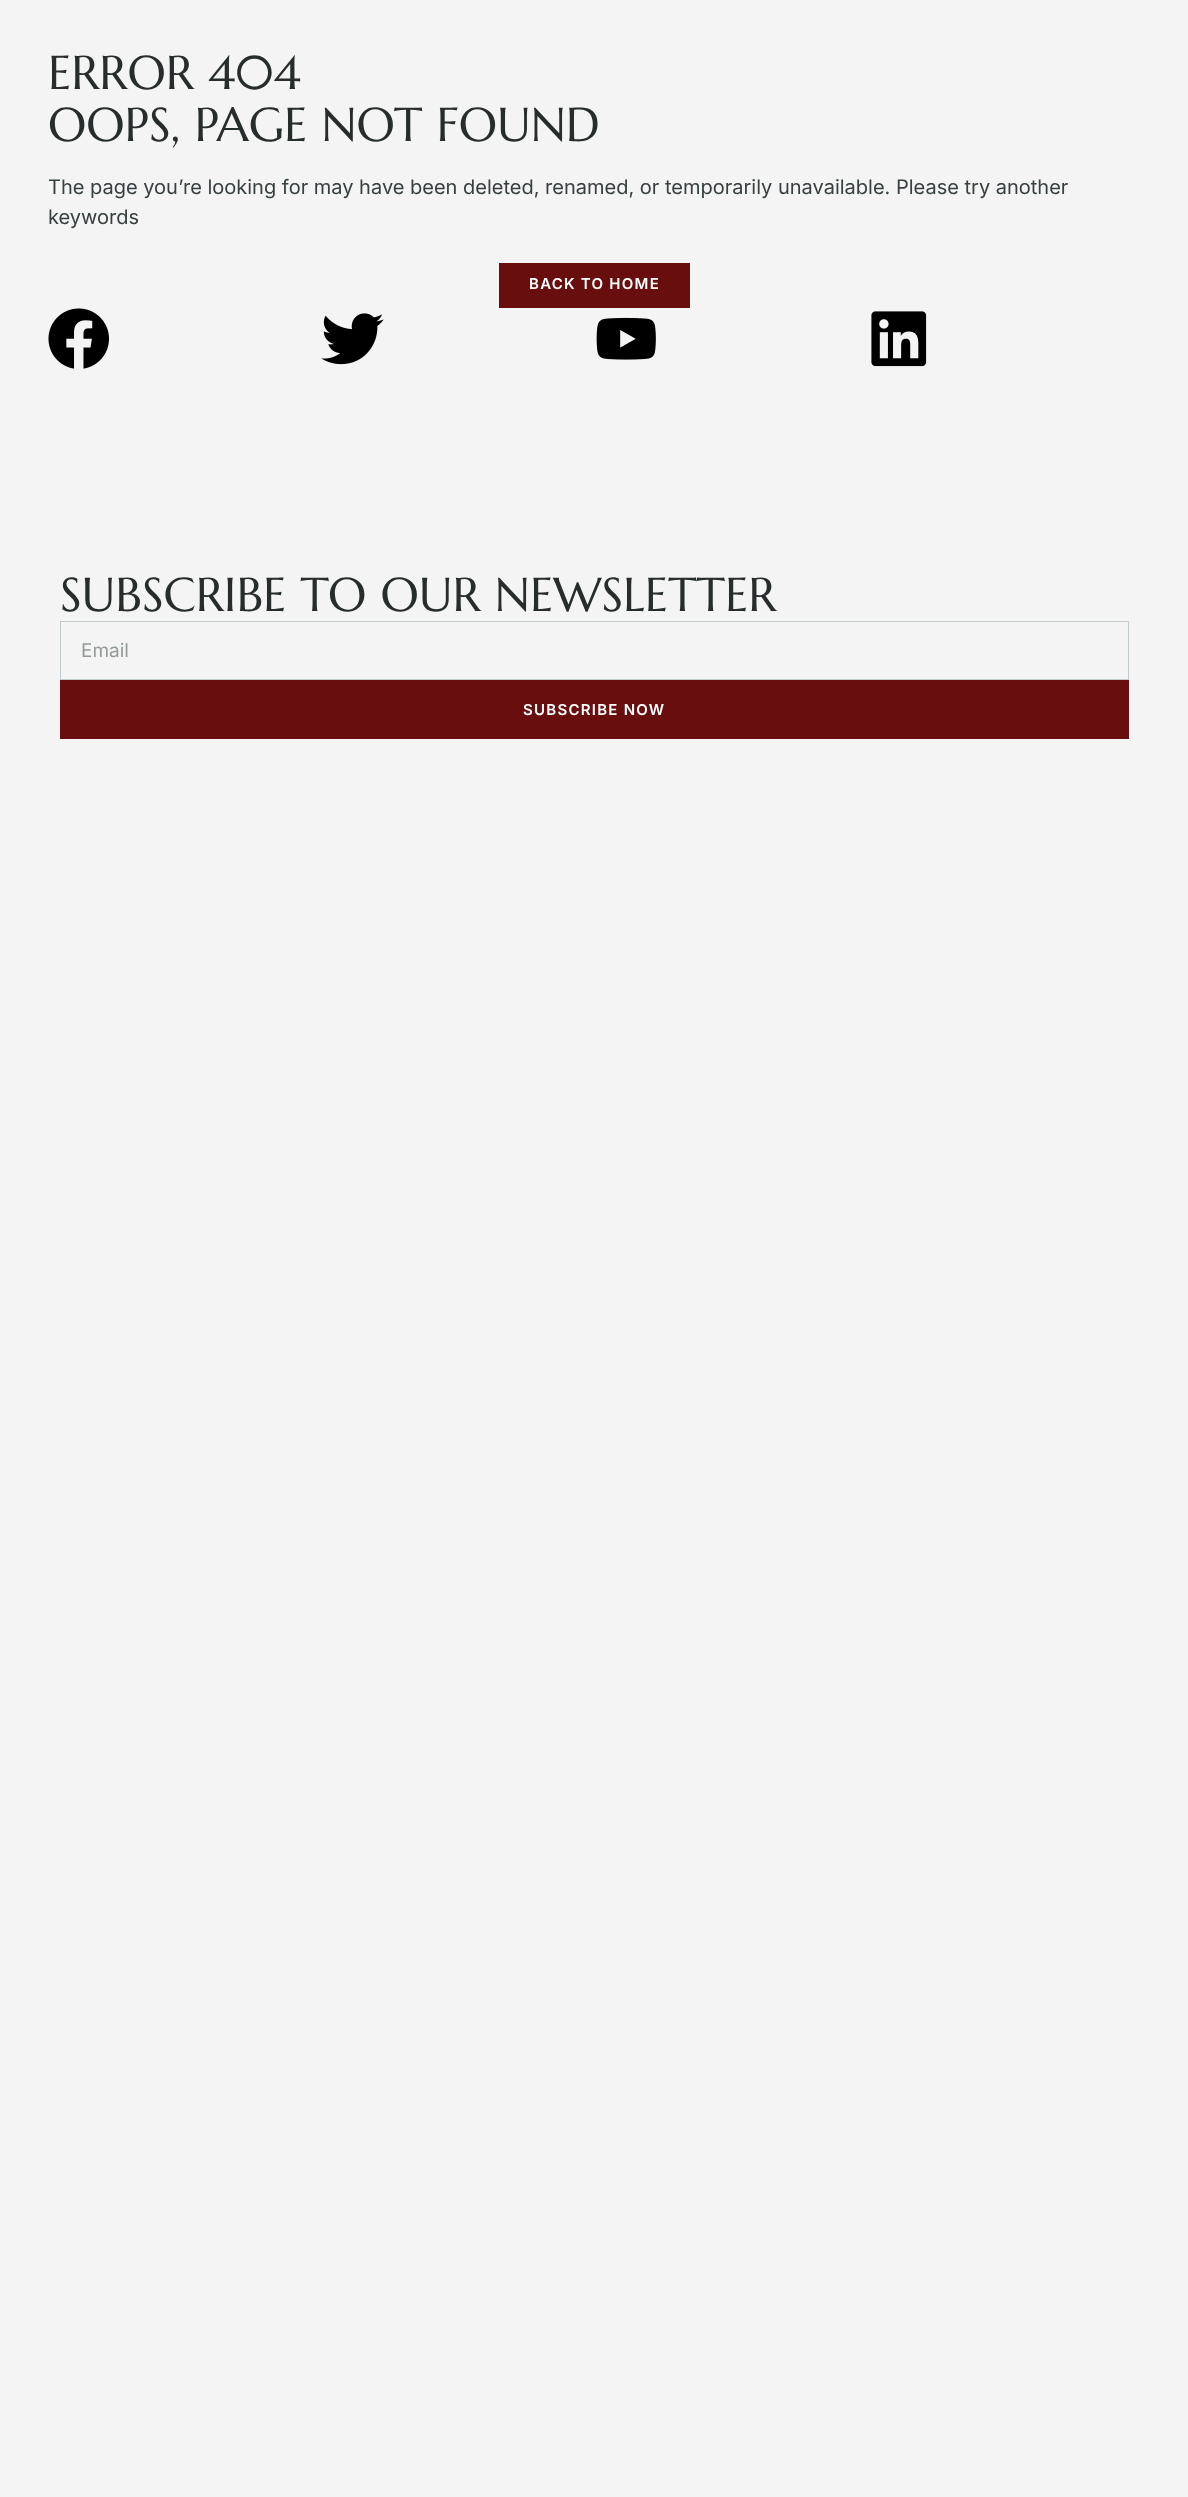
(async () => {
  const canvas = document.querySelector("canvas");
  canvas.width = 1188;
  canvas.height = 2497;
  const ctx = canvas.getContext("2d");
  ctx.miterLimit = 4;
  ctx.fontKerning = "normal";
  async function loadImage(src) {
    const img = new Image();
    img.src = src;
    await img.decode();
    return img;
  }

  ctx.fillStyle = "#f5f4f4";
  ctx.fillRect(0, 0, 1188, 2497);
  ctx.fillStyle = "#680e0e";
  ctx.fillRect(499, 263, 191, 45);
  ctx.drawImage(await loadImage("img/1.png"), 48, 308, 61, 61);
  ctx.drawImage(await loadImage("img/2.png"), 321, 313, 63, 52);
  ctx.drawImage(await loadImage("img/3.png"), 596, 317, 60, 43);
  ctx.drawImage(await loadImage("img/4.png"), 871, 311, 56, 56);
  ctx.strokeStyle = "#c2cbcb";
  ctx.strokeRect(60.5, 621.5, 1068, 58);
  ctx.fillRect(60, 680, 1069, 59);
  ctx.font = "47.5px Marcellus";
  ctx.fillStyle = "#272d2d";
  ctx.fillText("ERROR 404", 48, 89);
  ctx.fillText("OOPS, PAGE NOT FOUND", 48, 141);
  ctx.font = "20px Inter";
  ctx.fillStyle = "#374040";
  ctx.fillText("The page you’re looking for may have been deleted, renamed, or temporarily unavailable. Please try another", 48, 194);
  ctx.fillText("keywords", 48, 224);
  ctx.letterSpacing = "1.25px";
  ctx.font = "600 15px Inter";
  ctx.fillStyle = "#ffffff";
  ctx.fillText("BACK TO HOME", 529, 289);
  ctx.letterSpacing = "0px";
  ctx.font = "47.5px Marcellus";
  ctx.fillStyle = "#272d2d";
  ctx.fillText("SUBSCRIBE TO OUR NEWSLETTER", 60, 611);
  ctx.font = "19px Inter";
  ctx.fillStyle = "#929a9a";
  ctx.fillText("Email", 81, 657);
  ctx.letterSpacing = "1.25px";
  ctx.font = "600 15px Inter";
  ctx.fillStyle = "#ffffff";
  ctx.fillText("SUBSCRIBE NOW", 523, 715);
})();
